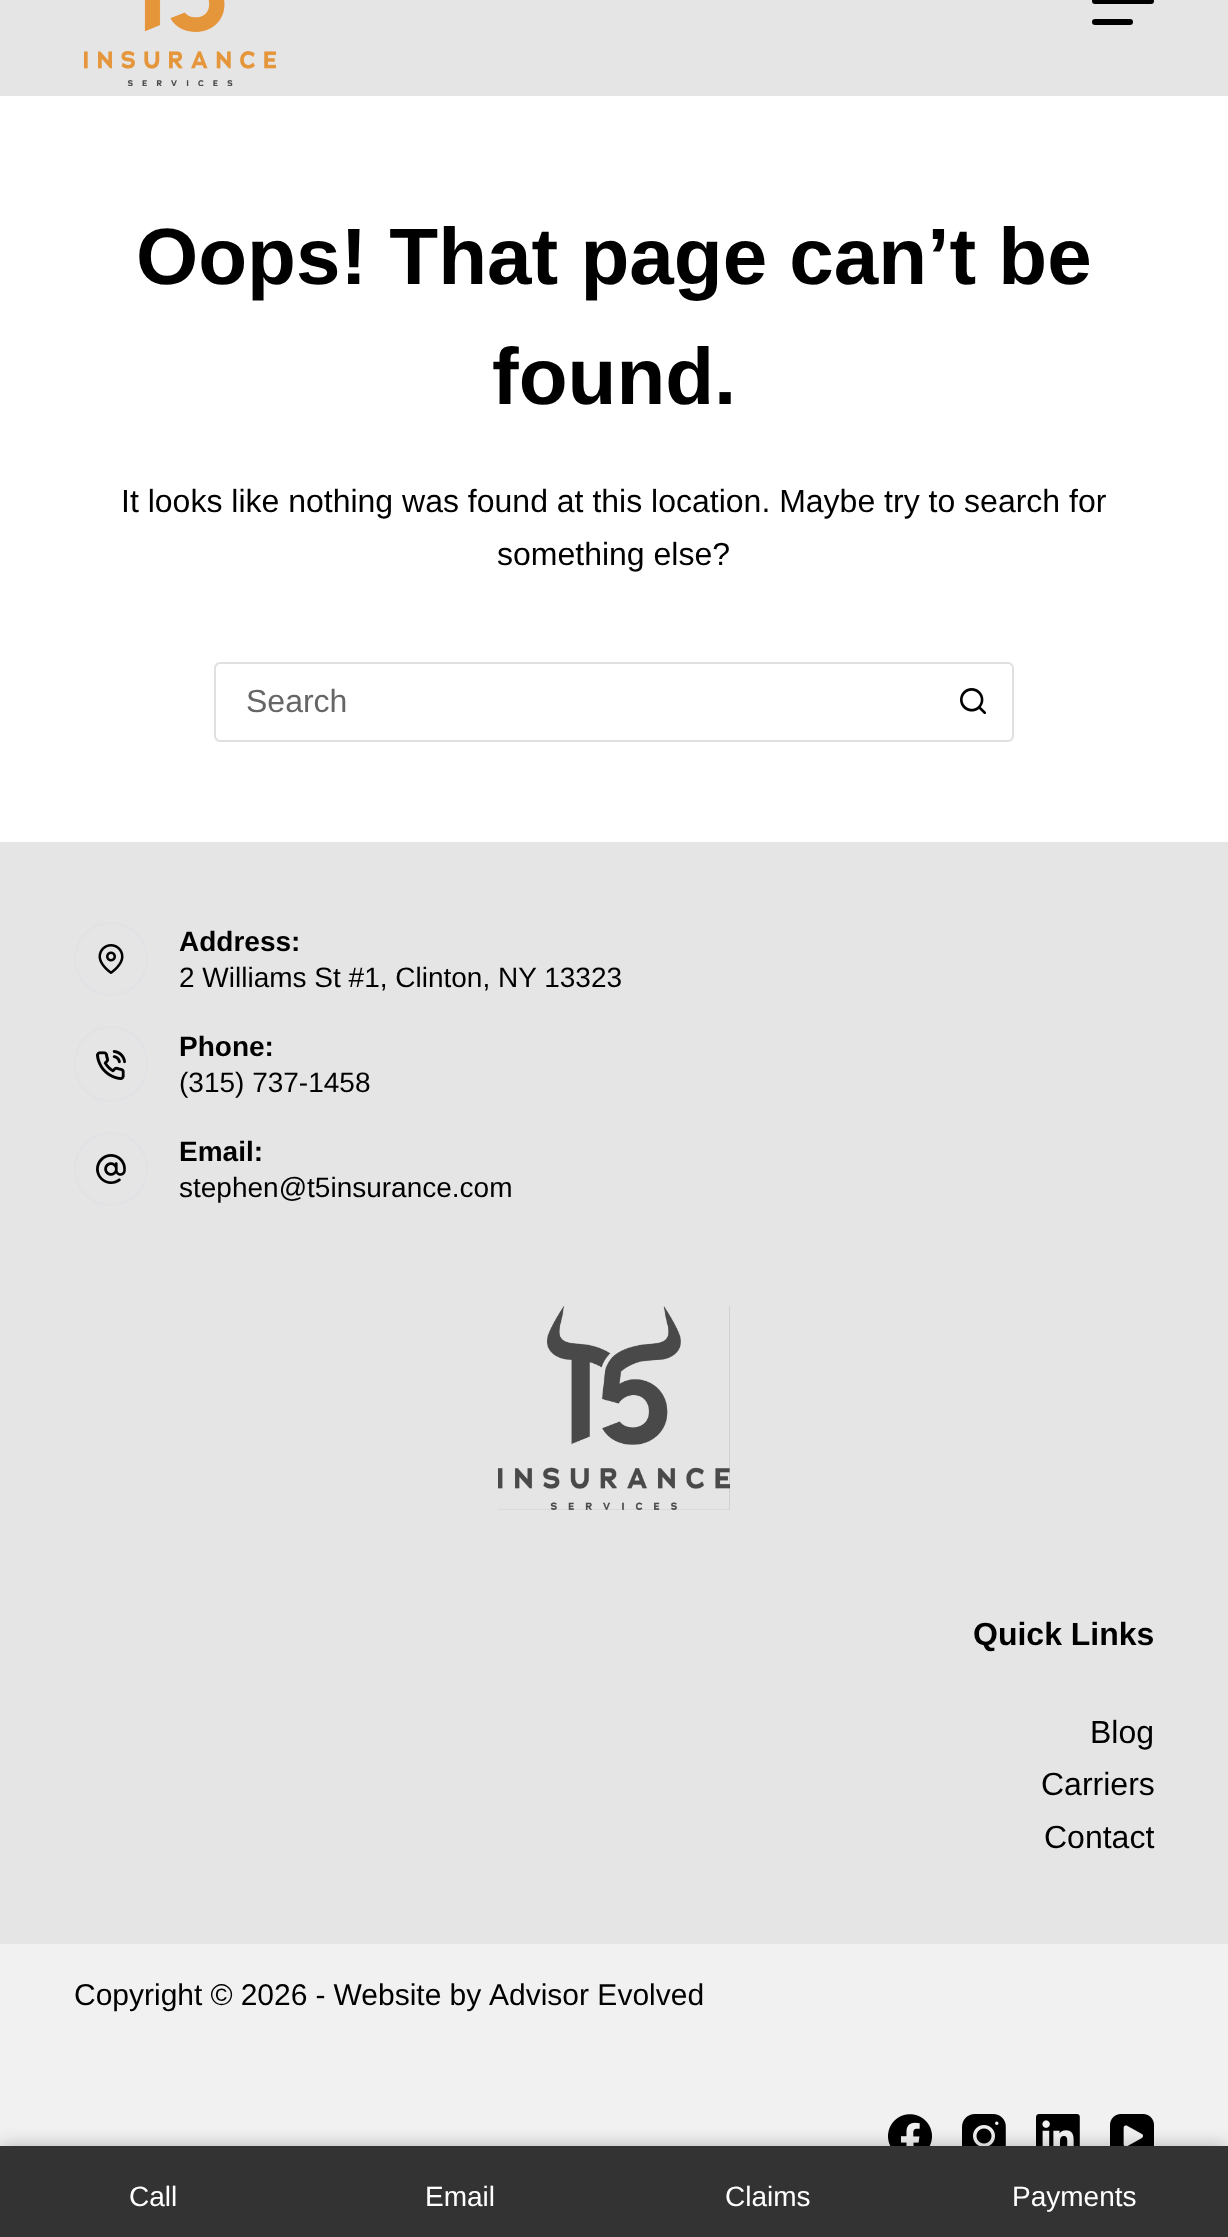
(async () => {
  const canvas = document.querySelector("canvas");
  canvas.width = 1228;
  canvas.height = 2237;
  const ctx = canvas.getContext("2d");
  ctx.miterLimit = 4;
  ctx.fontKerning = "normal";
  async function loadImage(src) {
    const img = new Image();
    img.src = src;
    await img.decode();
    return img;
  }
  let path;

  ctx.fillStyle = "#ffffff";
  ctx.fillRect(0, 0, 1228, 2237);
  ctx.fillStyle = "#e6e5e5";
  ctx.fillRect(0, 0, 1228, 96);
  ctx.drawImage(await loadImage("img/1.png"), 84, 0, 192, 86);
  ctx.fillStyle = "#000000";
  ctx.beginPath();
  ctx.roundRect(1092, -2, 62, 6, 3);
  ctx.fill();
  ctx.beginPath();
  ctx.roundRect(1092, 19, 41, 6, 3);
  ctx.fill();
  ctx.fillStyle = "#e0e0e0";
  path = new Path2D("M220 662H934V742H220C217 742 214 739 214 736V668C214 665 217 662 220 662ZM220 664H934V740H220C218 740 216 738 216 736V668C216 666 218 664 220 664Z");
  ctx.fill(path, "evenodd");
  path = new Path2D("M934 662H1008C1011 662 1014 665 1014 668V736C1014 739 1011 742 1008 742H934ZM934 664H1008C1010 664 1012 666 1012 668V736C1012 738 1010 740 1008 740H934Z");
  ctx.fill(path, "evenodd");
  ctx.drawImage(await loadImage("img/2.png"), 960, 688, 26, 26);
  ctx.fillStyle = "#f1f1f1";
  ctx.fillRect(0, 1944, 1228, 202);
  ctx.fillStyle = "#e6e5e5";
  ctx.fillRect(0, 842, 1228, 1102);
  ctx.beginPath();
  ctx.arc(111, 959, 36, 0, Math.PI * 2);
  ctx.strokeStyle = "#e0e2e5";
  ctx.lineWidth = 2;
  ctx.stroke();
  ctx.drawImage(await loadImage("img/3.png"), 98, 944, 26, 30);
  ctx.beginPath();
  ctx.roundRect(75, 1027, 72, 74, 36);
  ctx.stroke();
  ctx.drawImage(await loadImage("img/4.png"), 96, 1050, 30, 30);
  ctx.beginPath();
  ctx.arc(111, 1169, 36, 0, Math.PI * 2);
  ctx.stroke();
  ctx.drawImage(await loadImage("img/5.png"), 96, 1154, 30, 30);
  ctx.drawImage(await loadImage("img/6.png"), 498, 1306, 232, 204);
  ctx.drawImage(await loadImage("img/7.png"), 888, 2114, 44, 32);
  ctx.drawImage(await loadImage("img/8.png"), 962, 2114, 44, 32);
  ctx.drawImage(await loadImage("img/9.png"), 1036, 2114, 44, 32);
  ctx.drawImage(await loadImage("img/10.png"), 1110, 2114, 44, 32);
  ctx.fillStyle = "rgba(0, 0, 0, 0.25)";
  ctx.filter = "blur(9px)";
  ctx.beginPath();
  ctx.rect(0, 2146, 1228, 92);
  ctx.fill();
  ctx.filter = "none";
  ctx.fillStyle = "#333333";
  ctx.fillRect(0, 2146, 1228, 91);
  ctx.font = "bold 80px Liberation Sans";
  ctx.fillStyle = "#000000";
  ctx.fillText("Oops! That page can’t be", 136, 284);
  ctx.fillText("found.", 492, 404);
  ctx.font = "32px Liberation Sans";
  ctx.fillText("It looks like nothing was found at this location. Maybe try to search for", 121, 512);
  ctx.fillText("something else?", 497, 565);
  ctx.fillStyle = "#666666";
  ctx.fillText("Search", 246, 712);
  ctx.font = "bold 28px Liberation Sans";
  ctx.fillStyle = "#000000";
  ctx.fillText("Address:", 179, 951);
  ctx.font = "28px Liberation Sans";
  ctx.fillText("2 Williams St #1, Clinton, NY 13323", 179, 987);
  ctx.font = "bold 28px Liberation Sans";
  ctx.fillText("Phone:", 179, 1056);
  ctx.font = "28px Liberation Sans";
  ctx.fillText("(315) 737-1458", 179, 1092);
  ctx.font = "bold 28px Liberation Sans";
  ctx.fillText("Email:", 179, 1161);
  ctx.font = "28px Liberation Sans";
  ctx.fillText("stephen@t5insurance.com", 179, 1197);
  ctx.font = "bold 32px Liberation Sans";
  ctx.fillText("Quick Links", 973, 1645);
  ctx.font = "32px Liberation Sans";
  for (const [text, x, y] of [
    ["Blog", 1090, 1743],
    ["Carriers", 1041, 1795],
    ["Contact", 1044, 1848],
  ]) {
    ctx.fillText(text, x, y);
  }
  ctx.wordSpacing = "-0.25px";
  ctx.font = "30px Liberation Sans";
  ctx.fillText("Copyright © 2026 - Website by", 74, 2005);
  ctx.wordSpacing = "0px";
  ctx.fillText("Advisor Evolved", 489, 2005);
  ctx.font = "28px Liberation Sans";
  ctx.fillStyle = "#ffffff";
  for (const [text, x, y] of [
    ["Call", 129, 2206],
    ["Email", 425, 2206],
    ["Claims", 725, 2206],
    ["Payments", 1012, 2206],
  ]) {
    ctx.fillText(text, x, y);
  }
})();
